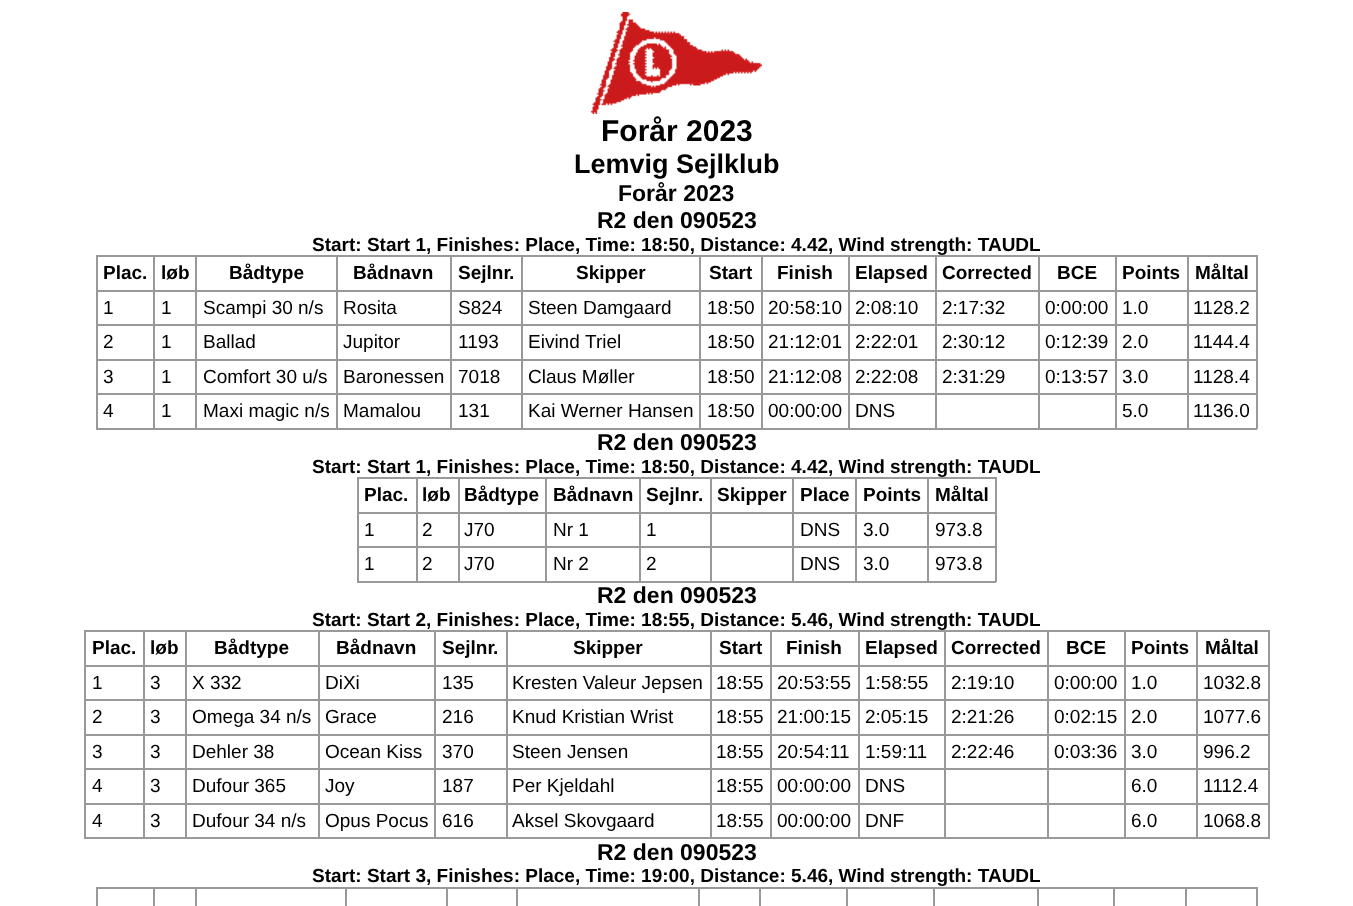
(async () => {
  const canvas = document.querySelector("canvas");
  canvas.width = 1353;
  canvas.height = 906;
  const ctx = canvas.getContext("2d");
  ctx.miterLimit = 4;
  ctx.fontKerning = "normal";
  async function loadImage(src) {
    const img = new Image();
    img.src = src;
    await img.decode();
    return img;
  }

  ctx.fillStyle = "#ffffff";
  ctx.fillRect(0, 0, 1353, 906);
  ctx.drawImage(await loadImage("img/1.png"), 591, 12, 171, 102);
  for (const [x, y, w, h, color] of [
    [96, 255, 1161, 2, "#999999"],
    [1256, 290, 2, 139, "#999999"],
    [1256, 255, 2, 36, "#999999"],
    [1187, 428, 70, 2, "#999999"],
    [1187, 393, 2, 36, "#999999"],
    [1187, 393, 70, 2, "#999999"],
    [1187, 359, 2, 36, "#999999"],
    [1187, 359, 70, 2, "#999999"],
    [1187, 324, 2, 36, "#999999"],
    [1187, 324, 70, 2, "#999999"],
    [1187, 290, 2, 36, "#999999"],
    [1187, 290, 70, 2, "#999999"],
    [1187, 255, 2, 36, "#999999"],
    [1115, 428, 73, 2, "#999999"],
    [1115, 393, 2, 36, "#999999"],
    [1115, 393, 73, 2, "#999999"],
    [1115, 359, 2, 36, "#999999"],
    [1115, 359, 73, 2, "#999999"],
    [1115, 324, 2, 36, "#999999"],
    [1115, 324, 73, 2, "#999999"],
    [1115, 290, 2, 36, "#999999"],
    [1115, 290, 73, 2, "#999999"],
    [1115, 255, 2, 36, "#999999"],
    [1038, 428, 78, 2, "#999999"],
    [1038, 393, 2, 36, "#999999"],
    [1038, 393, 78, 2, "#999999"],
    [1038, 359, 2, 36, "#999999"],
    [1038, 359, 78, 2, "#999999"],
    [1038, 324, 2, 36, "#999999"],
    [1038, 324, 78, 2, "#999999"],
    [1038, 290, 2, 36, "#999999"],
    [1038, 290, 78, 2, "#999999"],
    [1038, 255, 2, 36, "#999999"],
    [935, 428, 105, 2, "#999999"],
    [935, 393, 2, 36, "#999999"],
    [935, 393, 105, 2, "#999999"],
    [935, 359, 2, 36, "#999999"],
    [935, 359, 105, 2, "#999999"],
    [935, 324, 2, 36, "#999999"],
    [935, 324, 105, 2, "#999999"],
    [935, 290, 2, 36, "#999999"],
    [935, 290, 105, 2, "#999999"],
    [935, 255, 2, 36, "#999999"],
    [848, 428, 88, 2, "#999999"],
    [848, 393, 2, 36, "#999999"],
    [848, 393, 88, 2, "#999999"],
    [848, 359, 2, 36, "#999999"],
    [848, 359, 88, 2, "#999999"],
    [848, 324, 2, 36, "#999999"],
    [848, 324, 88, 2, "#999999"],
    [848, 290, 2, 36, "#999999"],
    [848, 290, 88, 2, "#999999"],
    [848, 255, 2, 36, "#999999"],
    [761, 428, 88, 2, "#999999"],
    [761, 393, 2, 36, "#999999"],
    [761, 393, 88, 2, "#999999"],
    [761, 359, 2, 36, "#999999"],
    [761, 359, 88, 2, "#999999"],
    [761, 324, 2, 36, "#999999"],
    [761, 324, 88, 2, "#999999"],
    [761, 290, 2, 36, "#999999"],
    [761, 290, 88, 2, "#999999"],
    [761, 255, 2, 36, "#999999"],
    [699, 428, 63, 2, "#999999"],
    [699, 393, 2, 36, "#999999"],
    [699, 393, 63, 2, "#999999"],
    [699, 359, 2, 36, "#999999"],
    [699, 359, 63, 2, "#999999"],
    [699, 324, 2, 36, "#999999"],
    [699, 324, 63, 2, "#999999"],
    [699, 290, 2, 36, "#999999"],
    [699, 290, 63, 2, "#999999"],
    [699, 255, 2, 36, "#999999"],
    [521, 428, 180, 2, "#999999"],
    [521, 393, 2, 36, "#999999"],
    [521, 393, 180, 2, "#999999"],
    [521, 359, 2, 36, "#999999"],
    [521, 359, 180, 2, "#999999"],
    [521, 324, 2, 36, "#999999"],
    [521, 324, 180, 2, "#999999"],
    [521, 290, 2, 36, "#999999"],
    [521, 290, 180, 2, "#999999"],
    [521, 255, 2, 36, "#999999"],
    [450, 428, 72, 2, "#999999"],
    [450, 393, 2, 36, "#999999"],
    [450, 393, 72, 2, "#999999"],
    [450, 359, 2, 36, "#999999"],
    [450, 359, 72, 2, "#999999"],
    [450, 324, 2, 36, "#999999"],
    [450, 324, 72, 2, "#999999"],
    [450, 290, 2, 36, "#999999"],
    [450, 290, 72, 2, "#999999"],
    [450, 255, 2, 36, "#999999"],
    [336, 428, 116, 2, "#999999"],
    [336, 393, 2, 36, "#999999"],
    [336, 393, 116, 2, "#999999"],
    [336, 359, 2, 36, "#999999"],
    [336, 359, 116, 2, "#999999"],
    [336, 324, 2, 36, "#999999"],
    [336, 324, 116, 2, "#999999"],
    [336, 290, 2, 36, "#999999"],
    [336, 290, 116, 2, "#999999"],
    [336, 255, 2, 36, "#999999"],
    [195, 428, 143, 2, "#999999"],
    [195, 393, 2, 36, "#999999"],
    [195, 393, 143, 2, "#999999"],
    [195, 359, 2, 36, "#999999"],
    [195, 359, 143, 2, "#999999"],
    [195, 324, 2, 36, "#999999"],
    [195, 324, 143, 2, "#999999"],
    [195, 290, 2, 36, "#999999"],
    [195, 290, 143, 2, "#999999"],
    [195, 255, 2, 36, "#999999"],
    [153, 428, 44, 2, "#999999"],
    [153, 393, 2, 36, "#999999"],
    [153, 393, 44, 2, "#999999"],
    [153, 359, 2, 36, "#999999"],
    [153, 359, 44, 2, "#999999"],
    [153, 324, 2, 36, "#999999"],
    [153, 324, 44, 2, "#999999"],
    [153, 290, 2, 36, "#999999"],
    [153, 290, 44, 2, "#999999"],
    [153, 255, 2, 36, "#999999"],
    [96, 428, 59, 2, "#999999"],
    [96, 393, 2, 36, "#999999"],
    [96, 393, 59, 2, "#999999"],
    [96, 359, 2, 36, "#999999"],
    [96, 359, 59, 2, "#999999"],
    [96, 324, 2, 36, "#999999"],
    [96, 324, 59, 2, "#999999"],
    [96, 290, 2, 36, "#999999"],
    [96, 290, 59, 2, "#999999"],
    [96, 255, 2, 36, "#999999"],
    [357, 477, 639, 2, "#999999"],
    [995, 512, 2, 70, "#999999"],
    [995, 477, 2, 36, "#999999"],
    [927, 581, 69, 2, "#999999"],
    [927, 546, 2, 36, "#999999"],
    [927, 546, 69, 2, "#999999"],
    [927, 512, 2, 36, "#999999"],
    [927, 512, 69, 2, "#999999"],
    [927, 477, 2, 36, "#999999"],
    [855, 581, 74, 2, "#999999"],
    [855, 546, 2, 36, "#999999"],
    [855, 546, 74, 2, "#999999"],
    [855, 512, 2, 36, "#999999"],
    [855, 512, 74, 2, "#999999"],
    [855, 477, 2, 36, "#999999"],
    [792, 581, 65, 2, "#999999"],
    [792, 546, 2, 36, "#999999"],
    [792, 546, 65, 2, "#999999"],
    [792, 512, 2, 36, "#999999"],
    [792, 512, 65, 2, "#999999"],
    [792, 477, 2, 36, "#999999"],
    [710, 581, 84, 2, "#999999"],
    [710, 546, 2, 36, "#999999"],
    [710, 546, 84, 2, "#999999"],
    [710, 512, 2, 36, "#999999"],
    [710, 512, 84, 2, "#999999"],
    [710, 477, 2, 36, "#999999"],
    [639, 581, 72, 2, "#999999"],
    [639, 546, 2, 36, "#999999"],
    [639, 546, 72, 2, "#999999"],
    [639, 512, 2, 36, "#999999"],
    [639, 512, 72, 2, "#999999"],
    [639, 477, 2, 36, "#999999"],
    [545, 581, 96, 2, "#999999"],
    [545, 546, 2, 36, "#999999"],
    [545, 546, 96, 2, "#999999"],
    [545, 512, 2, 36, "#999999"],
    [545, 512, 96, 2, "#999999"],
    [545, 477, 2, 36, "#999999"],
    [458, 581, 88, 2, "#999999"],
    [458, 546, 2, 36, "#999999"],
    [458, 546, 88, 2, "#999999"],
    [458, 512, 2, 36, "#999999"],
    [458, 512, 88, 2, "#999999"],
    [458, 477, 2, 36, "#999999"],
    [416, 581, 43, 2, "#999999"],
    [416, 546, 2, 36, "#999999"],
    [416, 546, 43, 2, "#999999"],
    [416, 512, 2, 36, "#999999"],
    [416, 512, 43, 2, "#999999"],
    [416, 477, 2, 36, "#999999"],
    [357, 581, 60, 2, "#999999"],
    [357, 546, 2, 36, "#999999"],
    [357, 546, 60, 2, "#999999"],
    [357, 512, 2, 36, "#999999"],
    [357, 512, 60, 2, "#999999"],
    [357, 477, 2, 36, "#999999"],
    [84, 630, 1185, 2, "#999999"],
    [1268, 665, 2, 174, "#999999"],
    [1268, 630, 2, 36, "#999999"],
    [1196, 837, 73, 2, "#999999"],
    [1196, 803, 2, 36, "#999999"],
    [1196, 803, 73, 2, "#999999"],
    [1196, 768, 2, 36, "#999999"],
    [1196, 768, 73, 2, "#999999"],
    [1196, 734, 2, 36, "#999999"],
    [1196, 734, 73, 2, "#999999"],
    [1196, 699, 2, 36, "#999999"],
    [1196, 699, 73, 2, "#999999"],
    [1196, 665, 2, 36, "#999999"],
    [1196, 665, 73, 2, "#999999"],
    [1196, 630, 2, 36, "#999999"],
    [1124, 837, 73, 2, "#999999"],
    [1124, 803, 2, 36, "#999999"],
    [1124, 803, 73, 2, "#999999"],
    [1124, 768, 2, 36, "#999999"],
    [1124, 768, 73, 2, "#999999"],
    [1124, 734, 2, 36, "#999999"],
    [1124, 734, 73, 2, "#999999"],
    [1124, 699, 2, 36, "#999999"],
    [1124, 699, 73, 2, "#999999"],
    [1124, 665, 2, 36, "#999999"],
    [1124, 665, 73, 2, "#999999"],
    [1124, 630, 2, 36, "#999999"],
    [1047, 837, 78, 2, "#999999"],
    [1047, 803, 2, 36, "#999999"],
    [1047, 803, 78, 2, "#999999"],
    [1047, 768, 2, 36, "#999999"],
    [1047, 768, 78, 2, "#999999"],
    [1047, 734, 2, 36, "#999999"],
    [1047, 734, 78, 2, "#999999"],
    [1047, 699, 2, 36, "#999999"],
    [1047, 699, 78, 2, "#999999"],
    [1047, 665, 2, 36, "#999999"],
    [1047, 665, 78, 2, "#999999"],
    [1047, 630, 2, 36, "#999999"],
    [944, 837, 105, 2, "#999999"],
    [944, 803, 2, 36, "#999999"],
    [944, 803, 105, 2, "#999999"],
    [944, 768, 2, 36, "#999999"],
    [944, 768, 105, 2, "#999999"],
    [944, 734, 2, 36, "#999999"],
    [944, 734, 105, 2, "#999999"],
    [944, 699, 2, 36, "#999999"],
    [944, 699, 105, 2, "#999999"],
    [944, 665, 2, 36, "#999999"],
    [944, 665, 105, 2, "#999999"],
    [944, 630, 2, 36, "#999999"],
    [858, 837, 87, 2, "#999999"],
    [858, 803, 2, 36, "#999999"],
    [858, 803, 87, 2, "#999999"],
    [858, 768, 2, 36, "#999999"],
    [858, 768, 87, 2, "#999999"],
    [858, 734, 2, 36, "#999999"],
    [858, 734, 87, 2, "#999999"],
    [858, 699, 2, 36, "#999999"],
    [858, 699, 87, 2, "#999999"],
    [858, 665, 2, 36, "#999999"],
    [858, 665, 87, 2, "#999999"],
    [858, 630, 2, 36, "#999999"],
    [770, 837, 90, 2, "#999999"],
    [770, 803, 2, 36, "#999999"],
    [770, 803, 90, 2, "#999999"],
    [770, 768, 2, 36, "#999999"],
    [770, 768, 90, 2, "#999999"],
    [770, 734, 2, 36, "#999999"],
    [770, 734, 90, 2, "#999999"],
    [770, 699, 2, 36, "#999999"],
    [770, 699, 90, 2, "#999999"],
    [770, 665, 2, 36, "#999999"],
    [770, 665, 90, 2, "#999999"],
    [770, 630, 2, 36, "#999999"],
    [710, 837, 61, 2, "#999999"],
    [710, 803, 2, 36, "#999999"],
    [710, 803, 61, 2, "#999999"],
    [710, 768, 2, 36, "#999999"],
    [710, 768, 61, 2, "#999999"],
    [710, 734, 2, 36, "#999999"],
    [710, 734, 61, 2, "#999999"],
    [710, 699, 2, 36, "#999999"],
    [710, 699, 61, 2, "#999999"],
    [710, 665, 2, 36, "#999999"],
    [710, 665, 61, 2, "#999999"],
    [710, 630, 2, 36, "#999999"],
    [506, 837, 205, 2, "#999999"],
    [506, 803, 2, 36, "#999999"],
    [506, 803, 205, 2, "#999999"],
    [506, 768, 2, 36, "#999999"],
    [506, 768, 205, 2, "#999999"],
    [506, 734, 2, 36, "#999999"],
    [506, 734, 205, 2, "#999999"],
    [506, 699, 2, 36, "#999999"],
    [506, 699, 205, 2, "#999999"],
    [506, 665, 2, 36, "#999999"],
    [506, 665, 205, 2, "#999999"],
    [506, 630, 2, 36, "#999999"],
    [434, 837, 73, 2, "#999999"],
    [434, 803, 2, 36, "#999999"],
    [434, 803, 73, 2, "#999999"],
    [434, 768, 2, 36, "#999999"],
    [434, 768, 73, 2, "#999999"],
    [434, 734, 2, 36, "#999999"],
    [434, 734, 73, 2, "#999999"],
    [434, 699, 2, 36, "#999999"],
    [434, 699, 73, 2, "#999999"],
    [434, 665, 2, 36, "#999999"],
    [434, 665, 73, 2, "#999999"],
    [434, 630, 2, 36, "#999999"],
    [318, 837, 117, 2, "#999999"],
    [318, 803, 2, 36, "#999999"],
    [318, 803, 117, 2, "#999999"],
    [318, 768, 2, 36, "#999999"],
    [318, 768, 117, 2, "#999999"],
    [318, 734, 2, 36, "#999999"],
    [318, 734, 117, 2, "#999999"],
    [318, 699, 2, 36, "#999999"],
    [318, 699, 117, 2, "#999999"],
    [318, 665, 2, 36, "#999999"],
    [318, 665, 117, 2, "#999999"],
    [318, 630, 2, 36, "#999999"],
    [185, 837, 135, 2, "#999999"],
    [185, 803, 2, 36, "#999999"],
    [185, 803, 135, 2, "#999999"],
    [185, 768, 2, 36, "#999999"],
    [185, 768, 135, 2, "#999999"],
    [185, 734, 2, 36, "#999999"],
    [185, 734, 135, 2, "#999999"],
    [185, 699, 2, 36, "#999999"],
    [185, 699, 135, 2, "#999999"],
    [185, 665, 2, 36, "#999999"],
    [185, 665, 135, 2, "#999999"],
    [185, 630, 2, 36, "#999999"],
    [143, 837, 43, 2, "#999999"],
    [143, 803, 2, 36, "#999999"],
    [143, 803, 43, 2, "#999999"],
    [143, 768, 2, 36, "#999999"],
    [143, 768, 43, 2, "#999999"],
    [143, 734, 2, 36, "#999999"],
    [143, 734, 43, 2, "#999999"],
    [143, 699, 2, 36, "#999999"],
    [143, 699, 43, 2, "#999999"],
    [143, 665, 2, 36, "#999999"],
    [143, 665, 43, 2, "#999999"],
    [143, 630, 2, 36, "#999999"],
    [84, 837, 60, 2, "#999999"],
    [84, 803, 2, 36, "#999999"],
    [84, 803, 60, 2, "#999999"],
    [84, 768, 2, 36, "#999999"],
    [84, 768, 60, 2, "#999999"],
    [84, 734, 2, 36, "#999999"],
    [84, 734, 60, 2, "#999999"],
    [84, 699, 2, 36, "#999999"],
    [84, 699, 60, 2, "#999999"],
    [84, 665, 2, 36, "#999999"],
    [84, 665, 60, 2, "#999999"],
    [84, 630, 2, 36, "#999999"],
    [96, 887, 1161, 2, "#999999"],
    [1256, 887, 2, 19, "#999999"],
    [153, 887, 2, 19, "#999999"],
    [96, 887, 2, 19, "#999999"],
    [195, 887, 2, 19, "#999999"],
    [345, 887, 2, 19, "#999999"],
    [446, 887, 2, 19, "#999999"],
    [516, 887, 2, 19, "#999999"],
    [698, 887, 2, 19, "#999999"],
    [759, 887, 2, 19, "#999999"],
    [846, 887, 2, 19, "#999999"],
    [933, 887, 2, 19, "#999999"],
    [1037, 887, 2, 19, "#999999"],
    [1113, 887, 2, 19, "#999999"],
    [1185, 887, 2, 19, "#999999"],
  ]) {
    ctx.fillStyle = color;
    ctx.fillRect(x, y, w, h);
  }
  ctx.font = "bold 30px Liberation Sans";
  ctx.fillStyle = "#000000";
  ctx.fillText("Forår 2023", 601, 141);
  ctx.font = "bold 27px Liberation Sans";
  ctx.fillText("Lemvig Sejlklub", 574, 173);
  ctx.font = "bold 23px Liberation Sans";
  ctx.fillText("Forår 2023", 618, 201);
  ctx.fillText("R2 den 090523", 597, 228);
  ctx.font = "bold 19px Liberation Sans";
  for (const [text, x, y] of [
    ["Start: Start 1, Finishes: Place, Time: 18:50, Distance: 4.42, Wind strength: TAUDL", 312, 251],
    ["Plac.", 103, 279],
    ["løb", 161, 279],
    ["Bådtype", 229, 279],
    ["Bådnavn", 353, 279],
    ["Sejlnr", 458, 279],
    [".", 509, 279],
    ["Skipper", 576, 279],
    ["Start", 709, 279],
    ["Finish", 777, 279],
    ["Elapsed", 855, 279],
    ["Corrected", 942, 279],
    ["BCE", 1057, 279],
    ["Points", 1122, 279],
    ["Måltal", 1195, 279],
  ]) {
    ctx.fillText(text, x, y);
  }
  ctx.font = "19px Liberation Sans";
  for (const [text, x, y] of [
    ["1", 103, 314],
    ["1", 161, 314],
    ["Scampi 30 n/s", 203, 314],
    ["Rosita", 343, 314],
    ["S824", 458, 314],
    ["Steen Damgaard", 528, 314],
    ["18:50", 707, 314],
    ["20:58:10", 768, 314],
    ["2:08:10", 855, 314],
    ["2:17:32", 942, 314],
    ["0:00:00", 1045, 314],
    ["1.0", 1122, 314],
    ["1128.2", 1193, 314],
    ["2", 103, 348],
    ["1", 161, 348],
    ["Ballad", 203, 348],
    ["Jupitor", 343, 348],
    ["1193", 458, 348],
    ["Eivind", 528, 348],
    ["Triel", 585, 348],
    ["18:50", 707, 348],
    ["21:12:01", 768, 348],
    ["2:22:01", 855, 348],
    ["2:30:12", 942, 348],
    ["0:12:39", 1045, 348],
    ["2.0", 1122, 348],
    ["1144.4", 1193, 348],
    ["3", 103, 383],
    ["1", 161, 383],
    ["Comfort 30 u/s", 203, 383],
    ["Baronessen", 343, 383],
    ["7018", 458, 383],
    ["Claus Møller", 528, 383],
    ["18:50", 707, 383],
    ["21:12:08", 768, 383],
    ["2:22:08", 855, 383],
    ["2:31:29", 942, 383],
    ["0:13:57", 1045, 383],
    ["3.0", 1122, 383],
    ["1128.4", 1193, 383],
    ["4", 103, 417],
    ["1", 161, 417],
    ["Maxi magic n/s", 203, 417],
    ["Mamalou", 343, 417],
    ["131", 458, 417],
    ["Kai Werner Hansen", 528, 417],
    ["18:50", 707, 417],
    ["00:00:00", 768, 417],
    ["DNS", 855, 417],
    ["5.0", 1122, 417],
    ["1136.0", 1193, 417],
  ]) {
    ctx.fillText(text, x, y);
  }
  ctx.font = "bold 23px Liberation Sans";
  ctx.fillText("R2 den 090523", 597, 450);
  ctx.font = "bold 19px Liberation Sans";
  for (const [text, x, y] of [
    ["Start: Start 1, Finishes: Place, Time: 18:50, Distance: 4.42, Wind strength: TAUDL", 312, 473],
    ["Plac.", 364, 501],
    ["løb", 422, 501],
    ["Bådtype", 464, 501],
    ["Bådnavn", 553, 501],
    ["Sejlnr", 646, 501],
    [".", 698, 501],
    ["Skipper", 717, 501],
    ["Place", 800, 501],
    ["Points", 863, 501],
    ["Måltal", 935, 501],
  ]) {
    ctx.fillText(text, x, y);
  }
  ctx.font = "19px Liberation Sans";
  for (const [text, x, y] of [
    ["1", 364, 536],
    ["2", 422, 536],
    ["J70", 464, 536],
    ["Nr 1", 553, 536],
    ["1", 646, 536],
    ["DNS", 800, 536],
    ["3.0", 863, 536],
    ["973.8", 935, 536],
    ["1", 364, 570],
    ["2", 422, 570],
    ["J70", 464, 570],
    ["Nr 2", 553, 570],
    ["2", 646, 570],
    ["DNS", 800, 570],
    ["3.0", 863, 570],
    ["973.8", 935, 570],
  ]) {
    ctx.fillText(text, x, y);
  }
  ctx.font = "bold 23px Liberation Sans";
  ctx.fillText("R2 den 090523", 597, 603);
  ctx.font = "bold 19px Liberation Sans";
  for (const [text, x, y] of [
    ["Start: Start 2, Finishes: Place, Time: 18:55, Distance: 5.46, Wind strength: TAUDL", 312, 626],
    ["Plac.", 92, 654],
    ["løb", 150, 654],
    ["Bådtype", 214, 654],
    ["Bådnavn", 336, 654],
    ["Sejlnr", 442, 654],
    [".", 493, 654],
    ["Skipper", 573, 654],
    ["Start", 719, 654],
    ["Finish", 786, 654],
    ["Elapsed", 865, 654],
    ["Corrected", 951, 654],
    ["BCE", 1066, 654],
    ["Points", 1131, 654],
    ["Måltal", 1205, 654],
  ]) {
    ctx.fillText(text, x, y);
  }
  ctx.font = "19px Liberation Sans";
  for (const [text, x, y] of [
    ["1", 92, 689],
    ["3", 150, 689],
    ["X 332", 192, 689],
    ["DiXi", 325, 689],
    ["135", 442, 689],
    ["Kresten Valeur Jepsen", 512, 689],
    ["18:55", 716, 689],
    ["20:53:55", 777, 689],
    ["1:58:55", 865, 689],
    ["2:19:10", 951, 689],
    ["0:00:00", 1054, 689],
    ["1.0", 1131, 689],
    ["1032.8", 1203, 689],
    ["2", 92, 723],
    ["3", 150, 723],
    ["Omega 34 n/s", 192, 723],
    ["Grace", 325, 723],
    ["216", 442, 723],
    ["Knud Kristian Wrist", 512, 723],
    ["18:55", 716, 723],
    ["21:00:15", 777, 723],
    ["2:05:15", 865, 723],
    ["2:21:26", 951, 723],
    ["0:02:15", 1054, 723],
    ["2.0", 1131, 723],
    ["1077.6", 1203, 723],
    ["3", 92, 758],
    ["3", 150, 758],
    ["Dehler 38", 192, 758],
    ["Ocean Kiss", 325, 758],
    ["370", 442, 758],
    ["Steen Jensen", 512, 758],
    ["18:55", 716, 758],
    ["20:54:11", 777, 758],
    ["1:59:11", 865, 758],
    ["2:22:46", 951, 758],
    ["0:03:36", 1054, 758],
    ["3.0", 1131, 758],
    ["996.2", 1203, 758],
    ["4", 92, 792],
    ["3", 150, 792],
    ["Dufour 365", 192, 792],
    ["Joy", 325, 792],
    ["187", 442, 792],
    ["Per Kjeldahl", 512, 792],
    ["18:55", 716, 792],
    ["00:00:00", 777, 792],
    ["DNS", 865, 792],
    ["6.0", 1131, 792],
    ["1112.4", 1203, 792],
    ["4", 92, 827],
    ["3", 150, 827],
    ["Dufour 34 n/s", 192, 827],
    ["Opus Pocus", 325, 827],
    ["616", 442, 827],
    ["Aksel Skovgaard", 512, 827],
    ["18:55", 716, 827],
    ["00:00:00", 777, 827],
    ["DNF", 865, 827],
    ["6.0", 1131, 827],
    ["1068.8", 1203, 827],
  ]) {
    ctx.fillText(text, x, y);
  }
  ctx.font = "bold 23px Liberation Sans";
  ctx.fillText("R2 den 090523", 597, 860);
  ctx.font = "bold 19px Liberation Sans";
  ctx.fillText("Start: Start 3, Finishes: Place, Time: 19:00, Distance: 5.46, Wind strength: TAUDL", 312, 882);
})();
